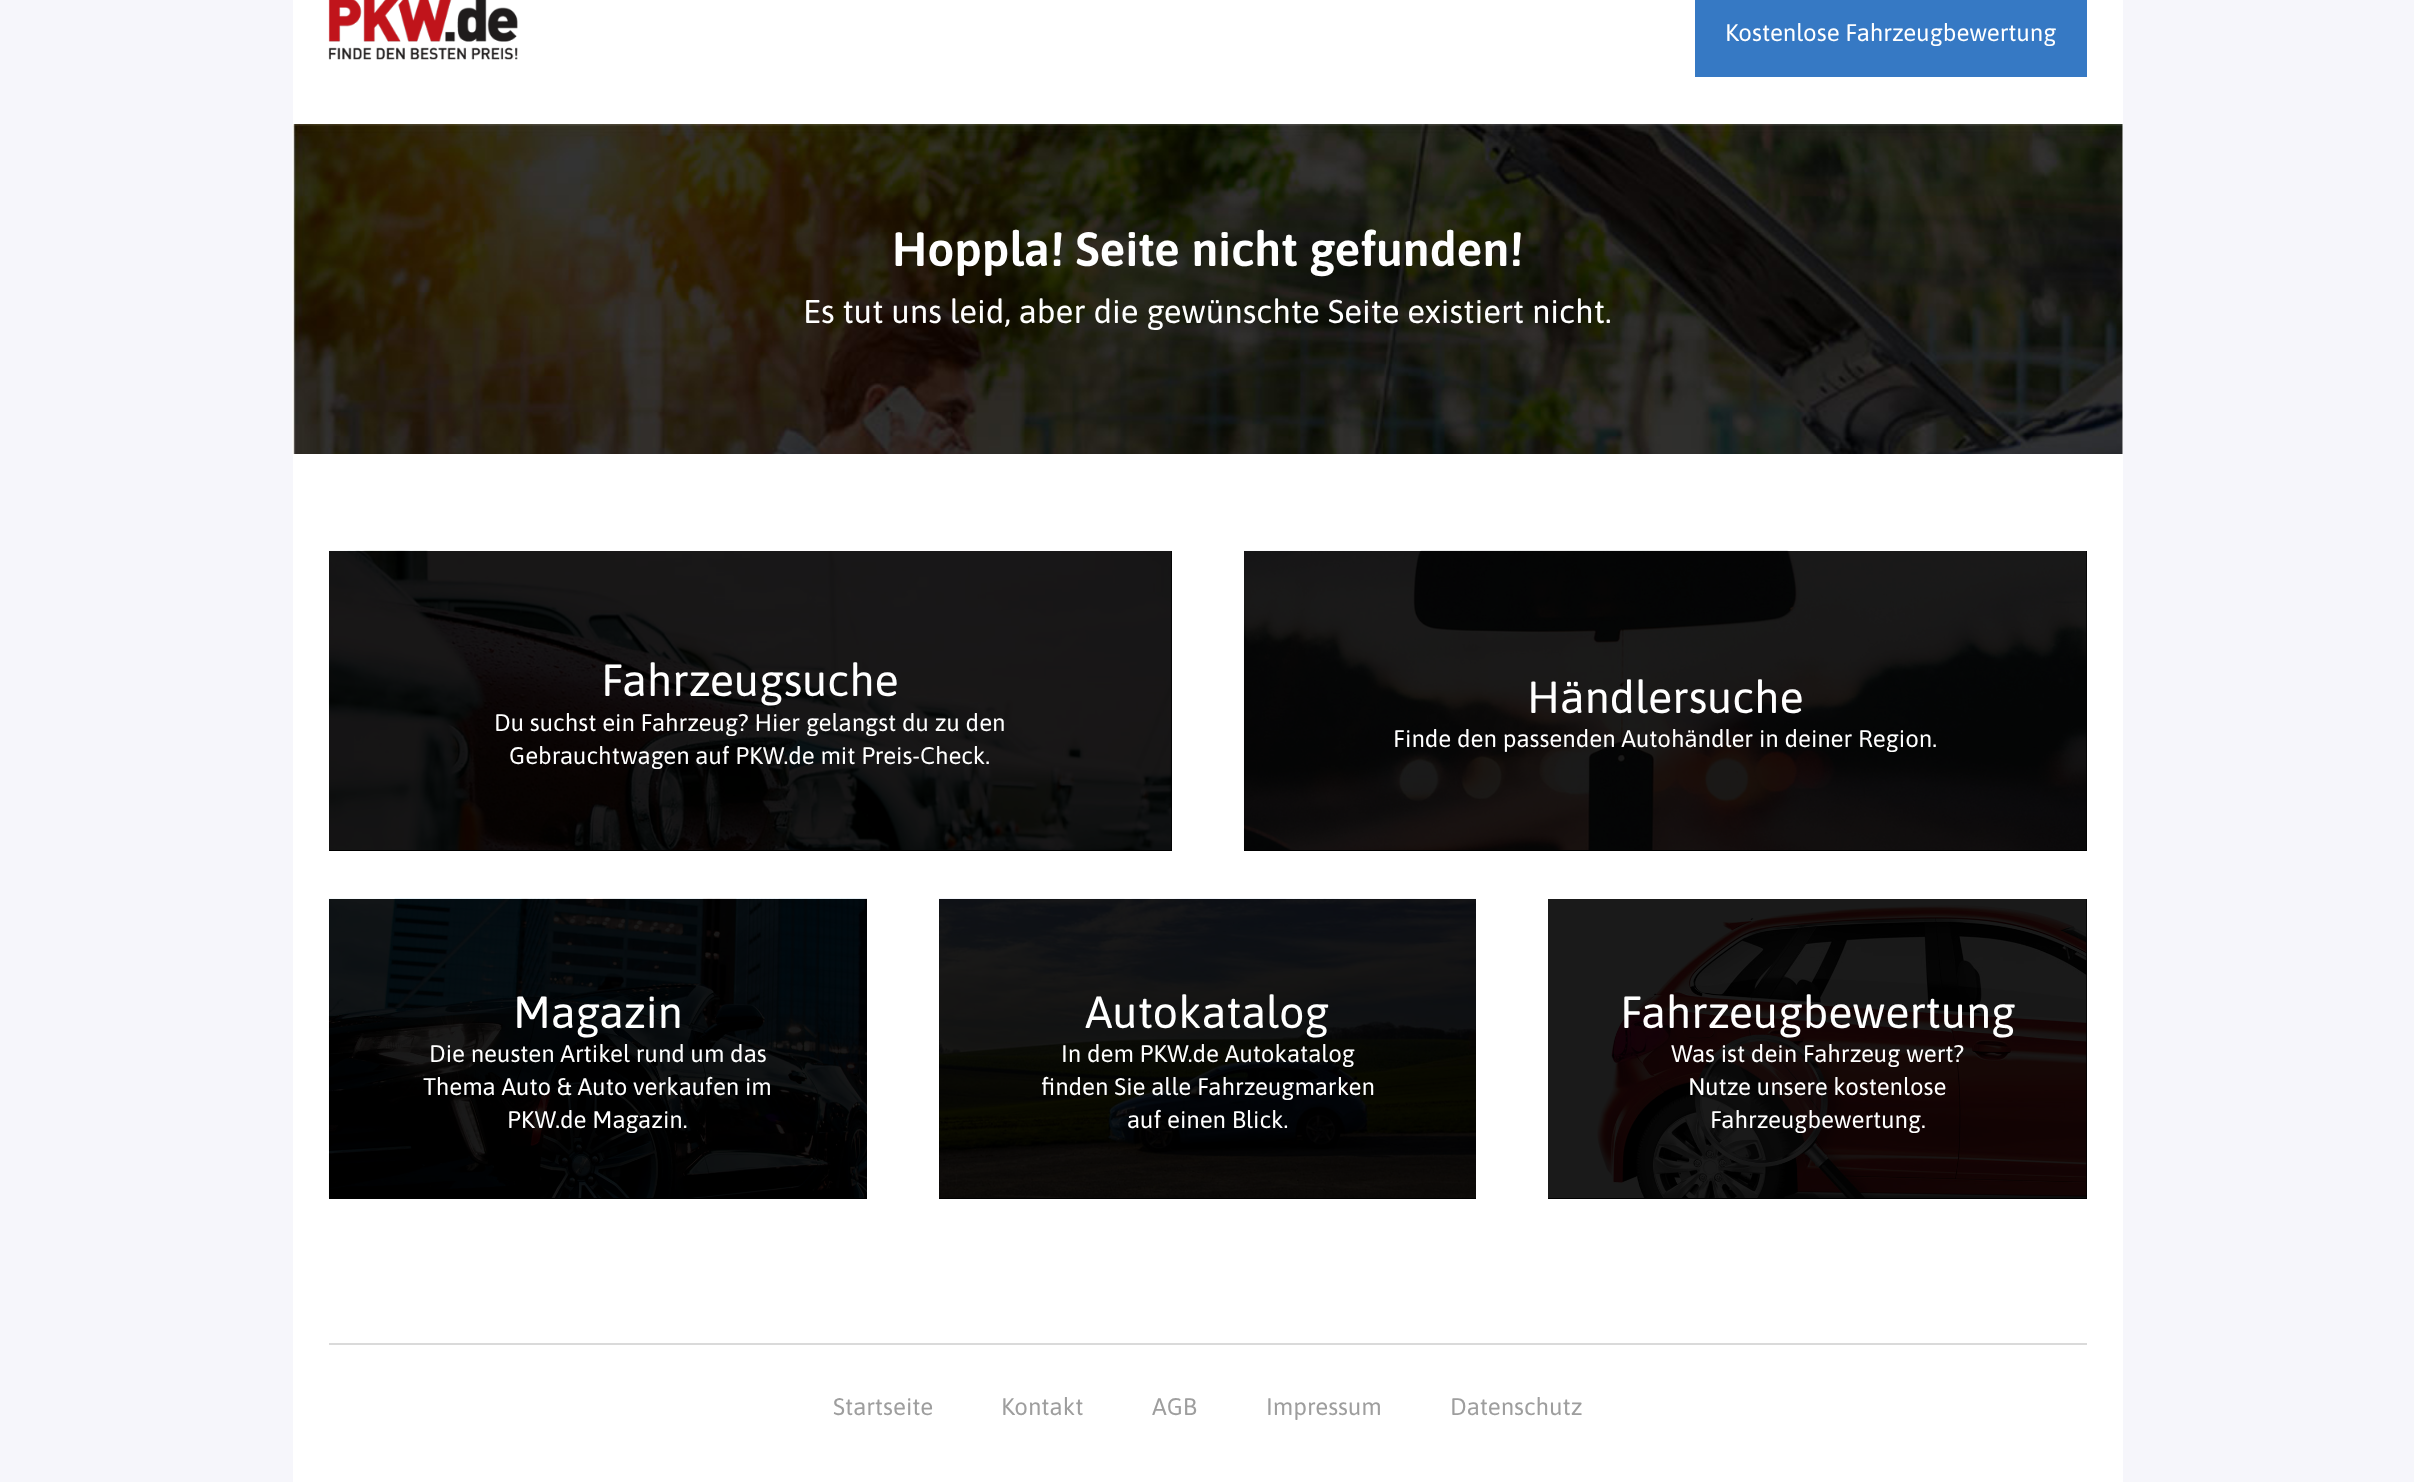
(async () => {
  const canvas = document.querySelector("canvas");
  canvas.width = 2414;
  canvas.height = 1482;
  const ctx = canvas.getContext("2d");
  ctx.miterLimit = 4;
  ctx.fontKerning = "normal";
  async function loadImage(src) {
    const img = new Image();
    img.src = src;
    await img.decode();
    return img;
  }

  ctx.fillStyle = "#f6f6fb";
  ctx.fillRect(0, 0, 2414, 1482);
  ctx.fillStyle = "#ffffff";
  ctx.fillRect(293, 0, 1830, 1482);
  ctx.drawImage(await loadImage("img/1.png"), 328, 0, 190, 60);
  ctx.fillStyle = "#3679c4";
  ctx.fillRect(1695, 0, 392, 77);
  ctx.drawImage(await loadImage("img/2.png"), 292, 124, 1831, 330);
  ctx.fillStyle = "#000000";
  ctx.fillRect(329, 551, 843, 300);
  ctx.drawImage(await loadImage("img/3.png"), 328, 550, 844, 300);
  ctx.fillRect(1244, 551, 843, 300);
  ctx.drawImage(await loadImage("img/4.png"), 1243, 550, 844, 300);
  ctx.fillRect(329, 899, 538, 300);
  ctx.drawImage(await loadImage("img/5.png"), 328, 898, 539, 300);
  ctx.fillRect(939, 899, 537, 300);
  ctx.drawImage(await loadImage("img/6.png"), 939, 898, 537, 300);
  ctx.fillRect(1548, 899, 539, 300);
  ctx.drawImage(await loadImage("img/7.png"), 1548, 899, 539, 299);
  ctx.fillStyle = "#dadada";
  ctx.fillRect(329, 1343, 1758, 2);
  ctx.font = "24px Asap";
  ctx.fillStyle = "#ffffff";
  ctx.fillText("Kostenlose Fahrzeugbewertung", 1725, 41);
  ctx.font = "600 48px Asap";
  ctx.fillText("Hoppla! Seite nicht gefunden!", 892, 266);
  ctx.font = "33px Asap";
  ctx.fillText("Es tut uns leid, aber die gewünschte Seite existiert nicht.", 803, 323);
  ctx.font = "45px Asap";
  ctx.fillText("Fahrzeugsuche", 601, 696);
  ctx.font = "24px Asap";
  ctx.fillText("Du suchst ein Fahrzeug? Hier gelangst du zu den", 494, 731);
  ctx.fillText("Gebrauchtwagen auf PKW.de mit Preis-Check.", 509, 764);
  ctx.font = "45px Asap";
  ctx.fillText("Händlersuche", 1527, 713);
  ctx.font = "24px Asap";
  ctx.fillText("Finde den passenden Autohändler in deiner Region.", 1393, 747);
  ctx.font = "45px Asap";
  ctx.fillText("Magazin", 513, 1028);
  ctx.font = "24px Asap";
  for (const [text, x, y] of [
    ["Die neusten Artikel rund um das", 429, 1062],
    ["Thema Auto & Auto verkaufen im", 423, 1095],
    ["PKW.de Magazin.", 507, 1128],
  ]) {
    ctx.fillText(text, x, y);
  }
  ctx.font = "45px Asap";
  ctx.fillText("Autokatalog", 1085, 1028);
  ctx.font = "24px Asap";
  for (const [text, x, y] of [
    ["In dem PKW.de Autokatalog", 1061, 1062],
    ["finden Sie alle Fahrzeugmarken", 1041, 1095],
    ["auf einen Blick.", 1127, 1128],
  ]) {
    ctx.fillText(text, x, y);
  }
  ctx.font = "45px Asap";
  ctx.fillText("Fahrzeugbewertung", 1620, 1028);
  ctx.font = "24px Asap";
  for (const [text, x, y] of [
    ["Was ist dein Fahrzeug wert?", 1671, 1062],
    ["Nutze unsere kostenlose", 1688, 1095],
    ["Fahrzeugbewertung.", 1710, 1128],
  ]) {
    ctx.fillText(text, x, y);
  }
  ctx.fillStyle = "#9e9e9e";
  for (const [text, x, y] of [
    ["Startseite", 833, 1415],
    ["Kontakt", 1001, 1415],
    ["AGB", 1152, 1415],
    ["Impressum", 1266, 1415],
    ["Datenschutz", 1450, 1415],
  ]) {
    ctx.fillText(text, x, y);
  }
})();
